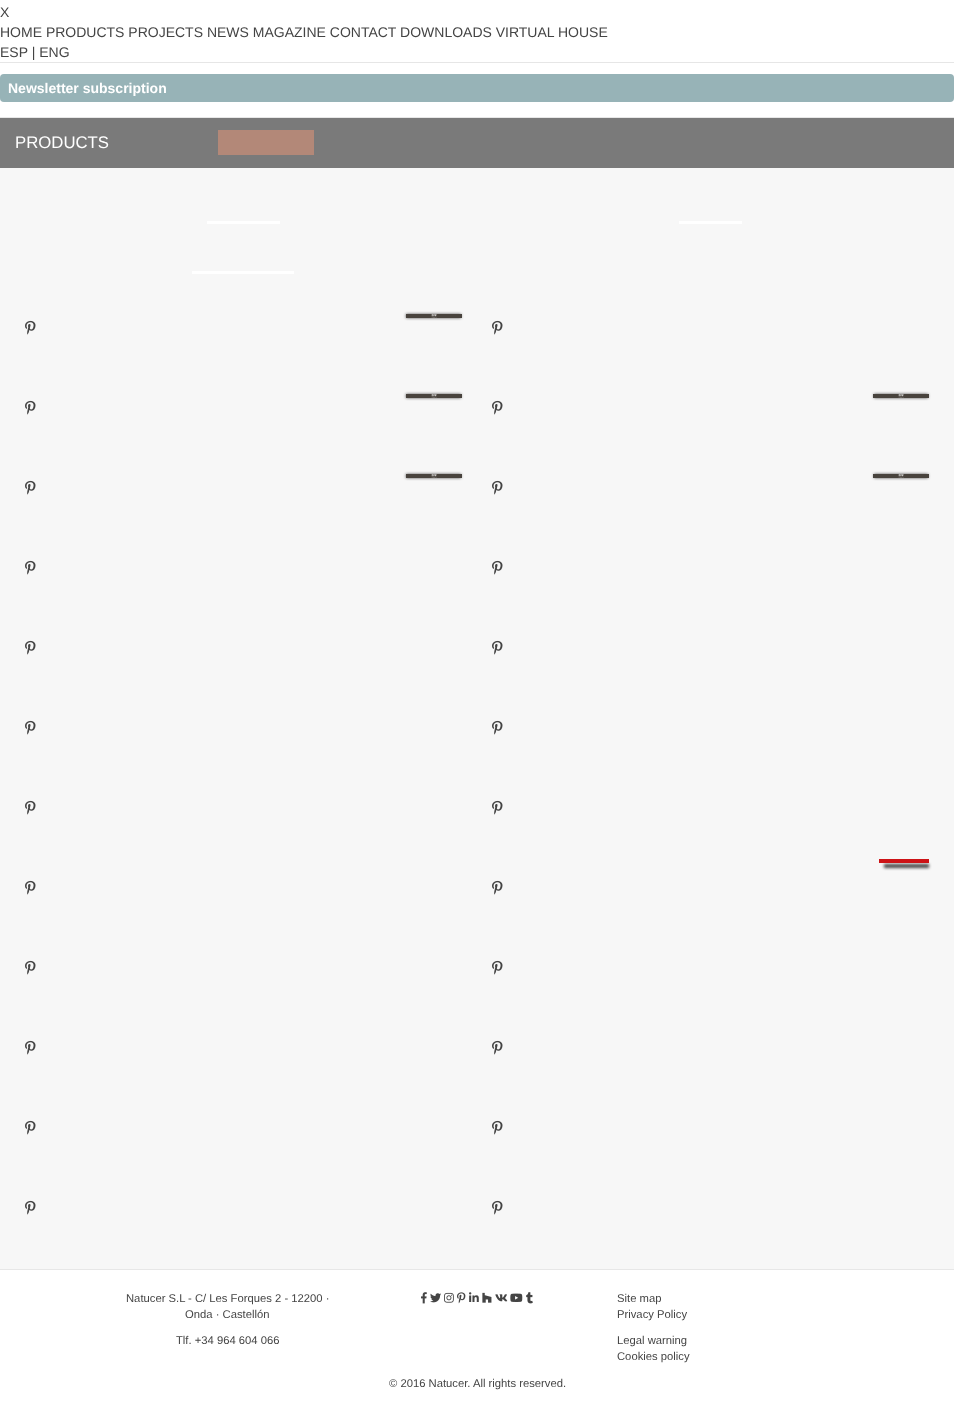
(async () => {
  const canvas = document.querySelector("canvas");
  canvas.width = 954;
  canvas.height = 1401;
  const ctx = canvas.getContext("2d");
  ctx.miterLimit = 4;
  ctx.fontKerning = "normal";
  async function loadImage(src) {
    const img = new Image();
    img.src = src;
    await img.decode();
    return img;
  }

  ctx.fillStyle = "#ffffff";
  ctx.fillRect(0, 0, 954, 1401);
  ctx.fillStyle = "#e6e6e6";
  ctx.fillRect(0, 62, 954, 1);
  ctx.fillStyle = "#97b3b7";
  ctx.beginPath();
  ctx.roundRect(0, 74, 954, 28, 4);
  ctx.fill();
  for (const [x, y, w, h, color] of [
    [0, 168, 954, 1101, "#f7f7f7"],
    [0, 117, 954, 1, "#e7e7e7"],
    [0, 1269, 954, 1, "#e7e7e7"],
    [0, 118, 954, 50, "#7a7a7a"],
    [218, 130, 96, 25, "#b38878"],
    [207, 221, 73, 3, "#ffffff"],
    [679, 221, 63, 3, "#ffffff"],
    [192, 271, 102, 3, "#ffffff"],
  ]) {
    ctx.fillStyle = color;
    ctx.fillRect(x, y, w, h);
  }
  ctx.fillStyle = "rgba(0, 0, 0, 0.7)";
  ctx.filter = "blur(1.5px)";
  ctx.beginPath();
  ctx.rect(406, 314, 55, 4);
  ctx.fill();
  ctx.filter = "none";
  ctx.fillStyle = "#48433d";
  ctx.fillRect(406, 314, 56, 4);
  ctx.drawImage(await loadImage("img/1.png"), 431, 314, 6, 4);
  ctx.drawImage(await loadImage("img/2.png"), 25, 320, 11, 15);
  ctx.drawImage(await loadImage("img/2.png"), 492, 320, 11, 15);
  ctx.fillStyle = "rgba(0, 0, 0, 0.7)";
  ctx.filter = "blur(1.5px)";
  ctx.beginPath();
  ctx.rect(406, 394, 55, 4);
  ctx.fill();
  ctx.filter = "none";
  ctx.fillStyle = "#48433d";
  ctx.fillRect(406, 394, 56, 4);
  ctx.drawImage(await loadImage("img/1.png"), 431, 394, 6, 4);
  ctx.drawImage(await loadImage("img/2.png"), 25, 400, 11, 15);
  ctx.fillStyle = "rgba(0, 0, 0, 0.7)";
  ctx.filter = "blur(1.5px)";
  ctx.beginPath();
  ctx.rect(874, 394, 54, 4);
  ctx.fill();
  ctx.filter = "none";
  ctx.fillStyle = "#48433d";
  ctx.fillRect(873, 394, 56, 4);
  ctx.drawImage(await loadImage("img/1.png"), 898, 394, 6, 4);
  ctx.drawImage(await loadImage("img/2.png"), 492, 400, 11, 15);
  ctx.fillStyle = "rgba(0, 0, 0, 0.7)";
  ctx.filter = "blur(1.5px)";
  ctx.beginPath();
  ctx.rect(406, 474, 55, 4);
  ctx.fill();
  ctx.filter = "none";
  ctx.fillStyle = "#48433d";
  ctx.fillRect(406, 474, 56, 4);
  ctx.drawImage(await loadImage("img/1.png"), 431, 474, 6, 4);
  ctx.drawImage(await loadImage("img/2.png"), 25, 480, 11, 15);
  ctx.fillStyle = "rgba(0, 0, 0, 0.7)";
  ctx.filter = "blur(1.5px)";
  ctx.beginPath();
  ctx.rect(874, 474, 54, 4);
  ctx.fill();
  ctx.filter = "none";
  ctx.fillStyle = "#48433d";
  ctx.fillRect(873, 474, 56, 4);
  ctx.drawImage(await loadImage("img/1.png"), 898, 474, 6, 4);
  ctx.drawImage(await loadImage("img/2.png"), 492, 480, 11, 15);
  ctx.drawImage(await loadImage("img/2.png"), 25, 560, 11, 15);
  ctx.drawImage(await loadImage("img/2.png"), 492, 560, 11, 15);
  ctx.drawImage(await loadImage("img/2.png"), 25, 640, 11, 15);
  ctx.drawImage(await loadImage("img/2.png"), 492, 640, 11, 15);
  ctx.drawImage(await loadImage("img/2.png"), 25, 720, 11, 15);
  ctx.drawImage(await loadImage("img/2.png"), 492, 720, 11, 15);
  ctx.drawImage(await loadImage("img/2.png"), 25, 800, 11, 15);
  ctx.drawImage(await loadImage("img/2.png"), 492, 800, 11, 15);
  ctx.drawImage(await loadImage("img/2.png"), 25, 880, 11, 15);
  ctx.fillStyle = "rgba(0, 0, 0, 0.7)";
  ctx.filter = "blur(1.5px)";
  ctx.beginPath();
  ctx.rect(884, 864, 45, 4);
  ctx.fill();
  ctx.filter = "none";
  ctx.fillStyle = "#cd1316";
  ctx.fillRect(879, 859, 50, 4);
  ctx.drawImage(await loadImage("img/2.png"), 492, 880, 11, 15);
  ctx.drawImage(await loadImage("img/2.png"), 25, 960, 11, 15);
  ctx.drawImage(await loadImage("img/2.png"), 492, 960, 11, 15);
  ctx.drawImage(await loadImage("img/2.png"), 25, 1040, 11, 15);
  ctx.drawImage(await loadImage("img/2.png"), 492, 1040, 11, 15);
  ctx.drawImage(await loadImage("img/2.png"), 25, 1120, 11, 15);
  ctx.drawImage(await loadImage("img/2.png"), 492, 1120, 11, 15);
  ctx.drawImage(await loadImage("img/2.png"), 25, 1200, 11, 15);
  ctx.drawImage(await loadImage("img/2.png"), 492, 1200, 11, 15);
  ctx.drawImage(await loadImage("img/3.png"), 421, 1292, 6, 12);
  ctx.drawImage(await loadImage("img/4.png"), 430, 1293, 11, 10);
  ctx.drawImage(await loadImage("img/5.png"), 444, 1292, 10, 11);
  ctx.drawImage(await loadImage("img/6.png"), 457, 1292, 9, 12);
  ctx.drawImage(await loadImage("img/7.png"), 469, 1292, 10, 10);
  ctx.drawImage(await loadImage("img/8.png"), 482, 1292, 10, 11);
  ctx.drawImage(await loadImage("img/9.png"), 495, 1294, 13, 8);
  ctx.drawImage(await loadImage("img/10.png"), 510, 1293, 13, 9);
  ctx.drawImage(await loadImage("img/11.png"), 526, 1292, 7, 12);
  ctx.font = "14px Liberation Sans";
  ctx.fillStyle = "#444444";
  for (const [text, x, y] of [
    ["X", 0, 17],
    ["HOME PRODUCTS PROJECTS NEWS MAGAZINE CONTACT DOWNLOADS VIRTUAL HOUSE", 0, 37],
    ["ESP | ENG", 0, 57],
  ]) {
    ctx.fillText(text, x, y);
  }
  ctx.font = "bold 14px Liberation Sans";
  ctx.fillStyle = "#ffffff";
  ctx.fillText("Newsletter subscription", 8, 93);
  ctx.font = "16.75px Liberation Sans";
  ctx.fillText("PRODUCTS", 15, 148);
  ctx.font = "11.25px Liberation Sans";
  ctx.fillStyle = "#444444";
  for (const [text, x, y] of [
    ["Natucer S.L - C/ Les Forques 2 - 12200 ·", 126, 1302],
    ["Onda · Castellón", 185, 1318],
    ["Tlf. +34 964 604 066", 176, 1344],
    ["Site map", 617, 1302],
    ["Privacy Policy", 617, 1318],
    ["Legal warning", 617, 1344],
    ["Cookies policy", 617, 1360],
    ["© 2016 Natucer. All rights reserved.", 389, 1387],
  ]) {
    ctx.fillText(text, x, y);
  }
})();
